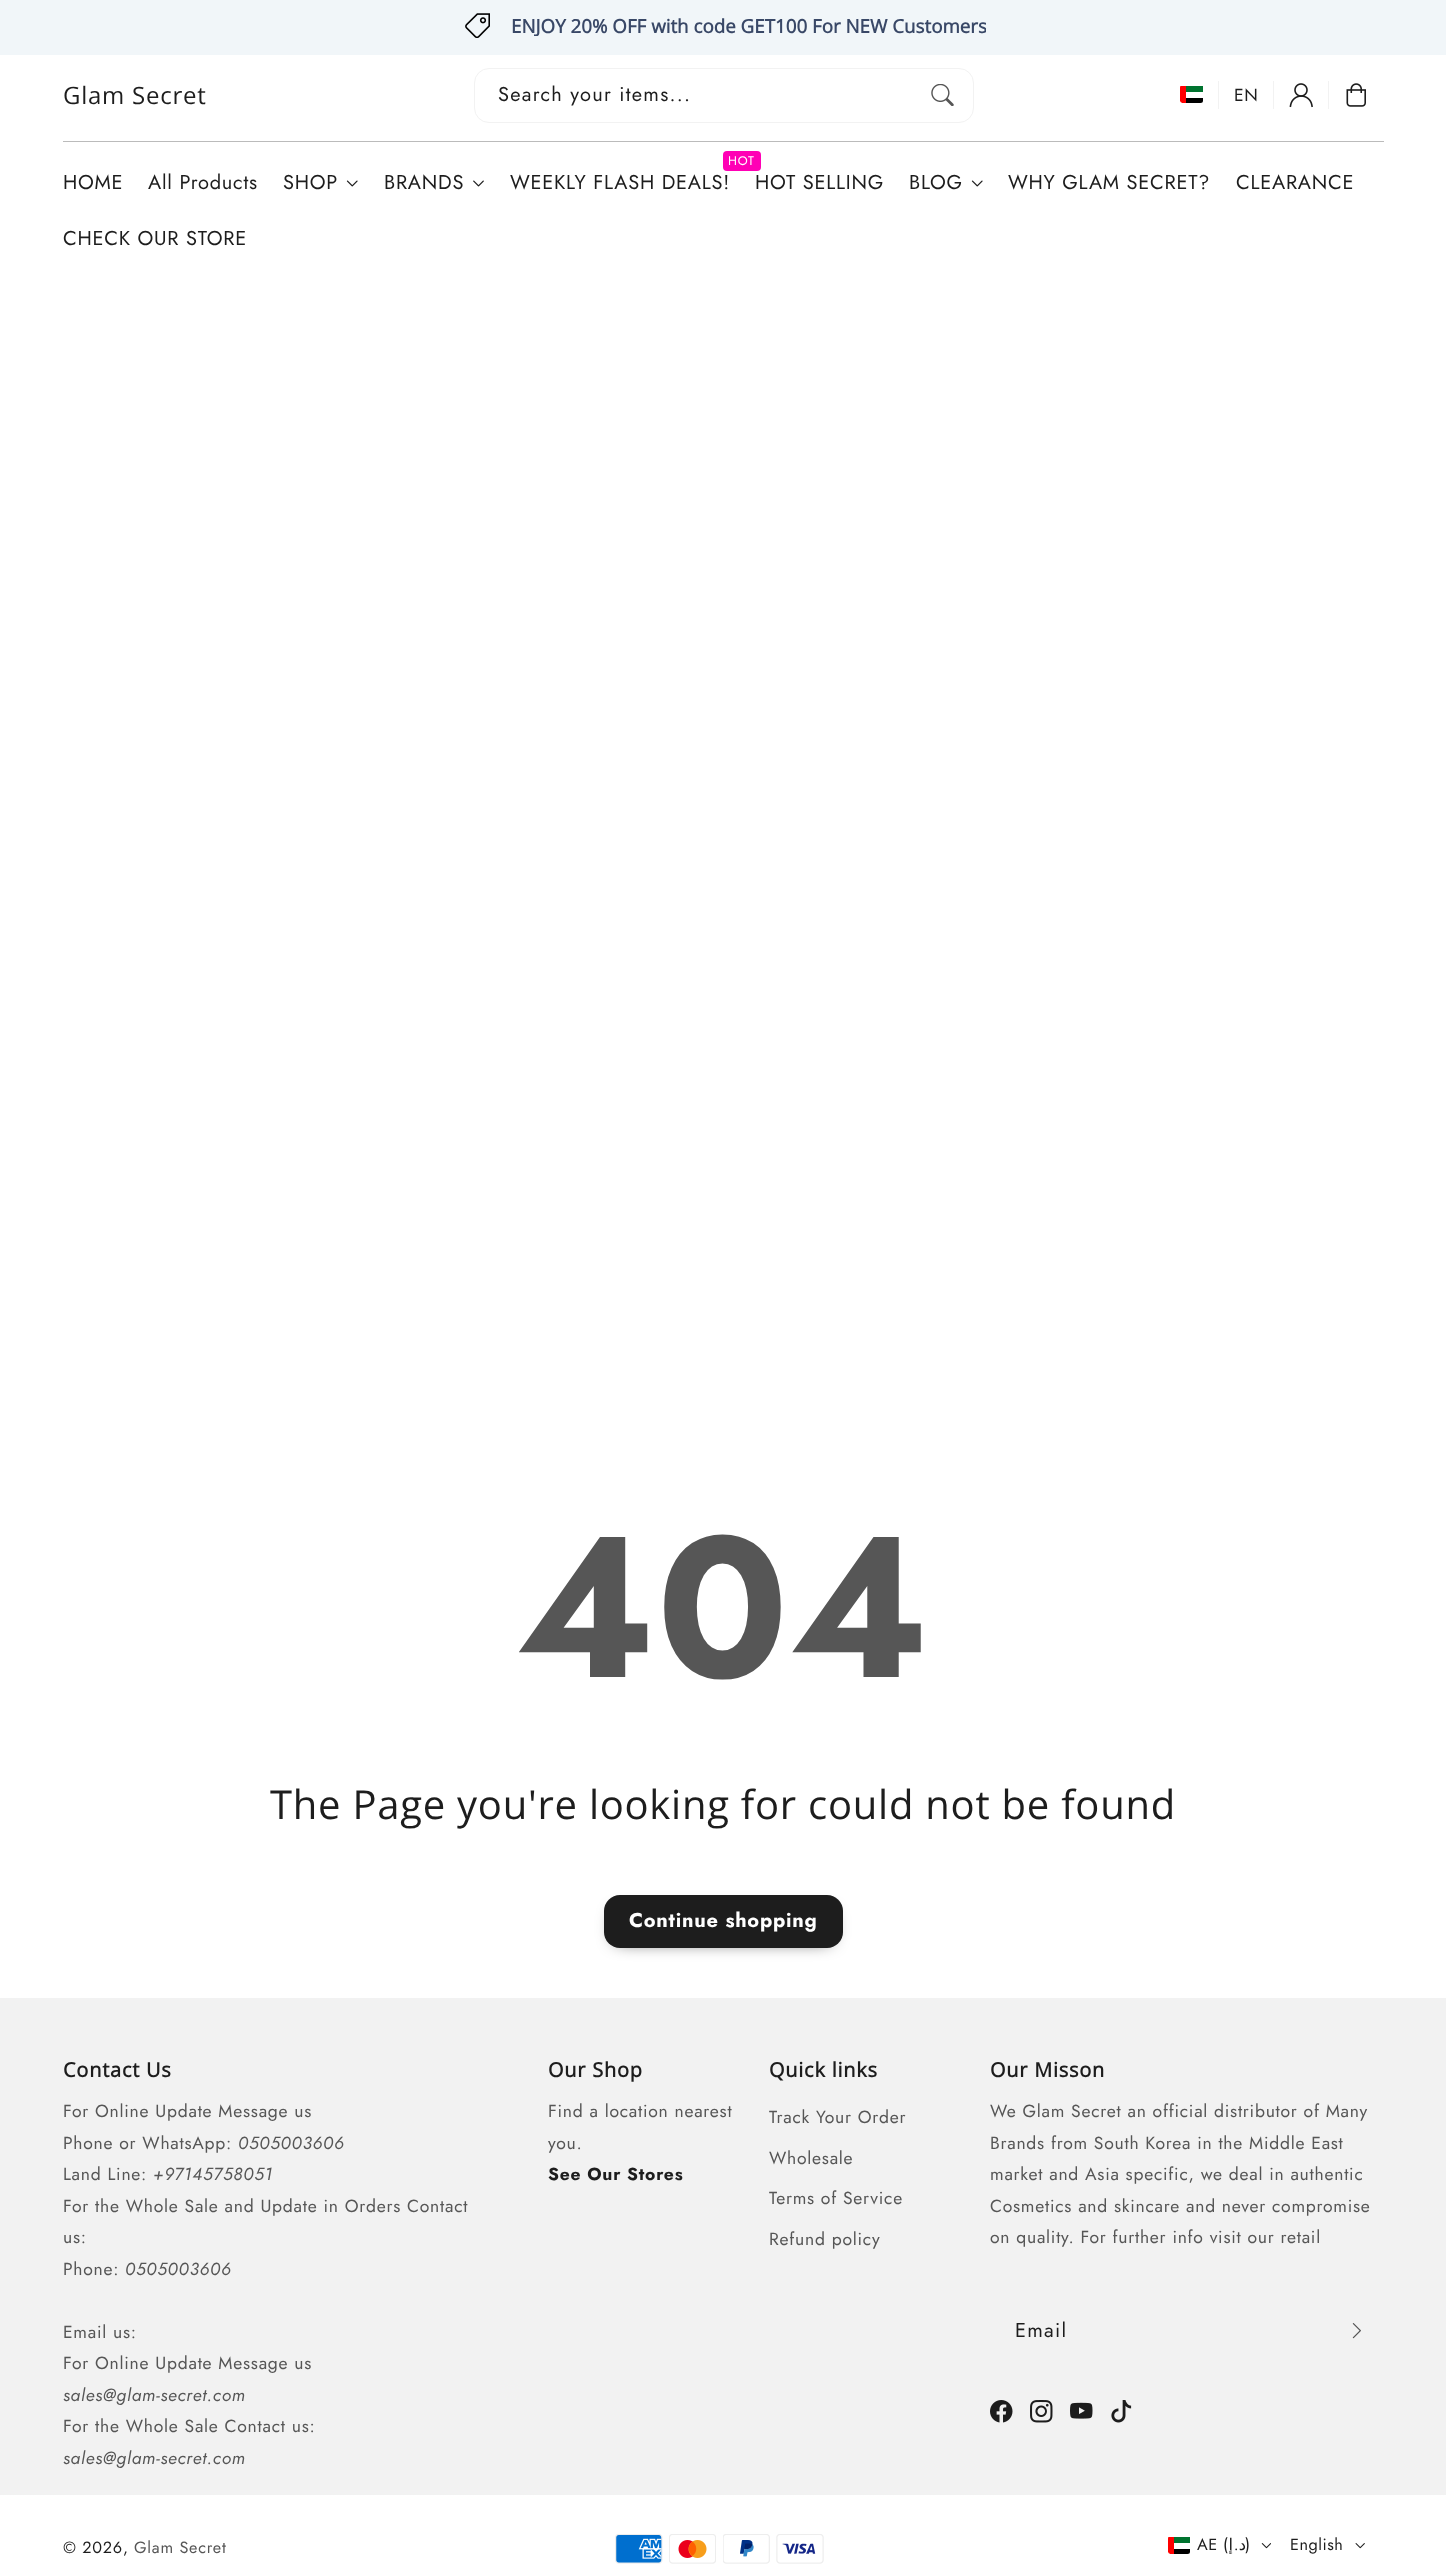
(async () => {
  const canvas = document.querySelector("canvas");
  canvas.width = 1446;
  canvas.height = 2574;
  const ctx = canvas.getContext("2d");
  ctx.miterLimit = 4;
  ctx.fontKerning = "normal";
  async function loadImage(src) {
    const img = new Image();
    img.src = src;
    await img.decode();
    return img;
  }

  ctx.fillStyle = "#ffffff";
  ctx.fillRect(0, 0, 1446, 2574);
  ctx.fillStyle = "#f1f6f9";
  ctx.fillRect(0, 0, 1446, 55);
  ctx.drawImage(await loadImage("img/1.png"), 465, 13, 25, 25);
  ctx.beginPath();
  ctx.roundRect(474.5, 68.5, 499, 54, 14.5);
  ctx.strokeStyle = "#f2f2f2";
  ctx.stroke();
  ctx.drawImage(await loadImage("img/2.png"), 931, 84, 23, 22);
  ctx.save();
  ctx.beginPath();
  ctx.roundRect(1180, 85, 23, 18, 2.5);
  ctx.clip();
  ctx.fillStyle = "#ff0000";
  ctx.beginPath();
  ctx.roundRect(1180, 86, 6, 17, [0, 0, 0, 2.5]);
  ctx.fill();
  ctx.restore();
  ctx.fillStyle = "#00732f";
  ctx.fillRect(1186, 86, 17, 6);
  ctx.fillStyle = "#000000";
  ctx.beginPath();
  ctx.roundRect(1186, 98, 17, 5, [0, 0, 2.5, 0]);
  ctx.fill();
  ctx.fillStyle = "#f2f2f2";
  ctx.fillRect(1218, 81, 1, 28);
  ctx.fillRect(1273, 81, 1, 28);
  ctx.drawImage(await loadImage("img/3.png"), 1289, 83, 24, 25);
  ctx.fillRect(1328, 81, 1, 28);
  ctx.drawImage(await loadImage("img/4.png"), 1346, 83, 20, 24);
  ctx.fillStyle = "#bbbbbb";
  ctx.fillRect(63, 141, 1321, 1);
  ctx.drawImage(await loadImage("img/5.png"), 346, 180, 12, 7);
  ctx.drawImage(await loadImage("img/6.png"), 473, 180, 11, 7);
  ctx.fillStyle = "#ff00b5";
  ctx.beginPath();
  ctx.roundRect(723, 151, 38, 20, 4);
  ctx.fill();
  ctx.drawImage(await loadImage("img/5.png"), 971, 180, 12, 7);
  ctx.fillStyle = "#000000";
  ctx.filter = "blur(9px)";
  ctx.beginPath();
  ctx.roundRect(616, 1913, 214, 27, 4);
  ctx.fill();
  ctx.filter = "none";
  ctx.fillStyle = "#1d1d1d";
  ctx.beginPath();
  ctx.roundRect(604, 1895, 239, 53, 16);
  ctx.fill();
  ctx.fillStyle = "#f2f2f2";
  ctx.fillRect(0, 1998, 1446, 497);
  ctx.drawImage(await loadImage("img/7.png"), 1352, 2323, 9, 16);
  ctx.drawImage(await loadImage("img/8.png"), 990, 2400, 23, 23);
  ctx.drawImage(await loadImage("img/9.png"), 1030, 2400, 23, 23);
  ctx.drawImage(await loadImage("img/10.png"), 1070, 2402, 23, 17);
  ctx.drawImage(await loadImage("img/11.png"), 1111, 2400, 21, 23);
  ctx.drawImage(await loadImage("img/12.png"), 615, 2534, 48, 30);
  ctx.drawImage(await loadImage("img/13.png"), 669, 2534, 47, 30);
  ctx.drawImage(await loadImage("img/14.png"), 723, 2534, 47, 30);
  ctx.drawImage(await loadImage("img/15.png"), 776, 2534, 48, 30);
  ctx.save();
  ctx.beginPath();
  ctx.roundRect(1168, 2536, 22, 18, 2.5);
  ctx.clip();
  ctx.fillStyle = "#ff0000";
  ctx.beginPath();
  ctx.roundRect(1168, 2537, 6, 17, [0, 0, 0, 2.5]);
  ctx.fill();
  ctx.restore();
  ctx.fillStyle = "#00732f";
  ctx.fillRect(1174, 2537, 16, 6);
  ctx.fillStyle = "#000000";
  ctx.beginPath();
  ctx.roundRect(1174, 2549, 16, 5, [0, 0, 2.5, 0]);
  ctx.fill();
  ctx.drawImage(await loadImage("img/16.png"), 1261, 2543, 10, 6);
  ctx.drawImage(await loadImage("img/17.png"), 1355, 2543, 10, 6);
  ctx.save();
  ctx.beginPath();
  ctx.rect(511, 14, 475, 22);
  ctx.clip();
  ctx.font = "bold 18.75px Open Sans";
  ctx.fillStyle = "#394867";
  ctx.fillText("ENJOY 20% OFF with code GET100 For NEW Customers", 511, 33);
  ctx.restore();
  ctx.letterSpacing = "0.75px";
  ctx.font = "24px Open Sans";
  ctx.fillStyle = "#1d1d1d";
  ctx.fillText("Glam Secret", 63, 104);
  ctx.letterSpacing = "1.25px";
  ctx.font = "20px Jost";
  ctx.fillText("Search your items...", 498, 101);
  ctx.letterSpacing = "0.5px";
  ctx.font = "17.5px Jost";
  ctx.fillText("EN", 1234, 101);
  ctx.letterSpacing = "0.75px";
  ctx.font = "20px Jost";
  for (const [text, x, y] of [
    ["HOME", 63, 189],
    ["All Products", 148, 189],
    ["SHOP", 283, 189],
    ["BRANDS", 384, 189],
  ]) {
    ctx.fillText(text, x, y);
  }
  ctx.font = "12.5px Jost";
  ctx.fillStyle = "#ffffff";
  ctx.fillText("HOT", 728, 165);
  ctx.font = "20px Jost";
  ctx.fillStyle = "#1d1d1d";
  for (const [text, x, y] of [
    ["WEEKLY FLASH DEALS!", 510, 189],
    ["HOT SELLING", 755, 189],
    ["BLOG", 909, 189],
    ["WHY GLAM SECRET?", 1008, 189],
    ["CLEARANCE", 1236, 189],
    ["CHECK OUR STORE", 63, 245],
  ]) {
    ctx.fillText(text, x, y);
  }
  ctx.font = "bold 200px Jost";
  ctx.fillStyle = "#565656";
  ctx.fillText("404", 516, 1677);
  ctx.font = "40px Open Sans";
  ctx.fillStyle = "#1d1d1d";
  ctx.fillText("The Page you're looking for could not be found", 270, 1819);
  ctx.font = "bold 20px Jost";
  ctx.fillStyle = "#ffffff";
  ctx.fillText("Continue shopping", 629, 1927);
  ctx.font = "bold 20px Open Sans";
  ctx.fillStyle = "#1d1d1d";
  ctx.fillText("Contact Us", 63, 2077);
  ctx.font = "17.5px Jost";
  ctx.fillStyle = "#565656";
  ctx.fillText("For Online Update Message us", 63, 2117);
  ctx.fillText("Phone or WhatsApp:", 63, 2149);
  ctx.font = "italic 17.5px Jost";
  ctx.fillText("0505003606", 238, 2149);
  ctx.font = "17.5px Jost";
  ctx.fillText("Land Line:", 63, 2180);
  ctx.font = "italic 17.5px Jost";
  ctx.fillText("+97145758051", 153, 2180);
  ctx.font = "17.5px Jost";
  for (const [text, x, y] of [
    ["For the Whole Sale and Update in Orders Contact", 63, 2212],
    ["us:", 63, 2243],
    ["Phone:", 63, 2275],
  ]) {
    ctx.fillText(text, x, y);
  }
  ctx.font = "italic 17.5px Jost";
  ctx.fillText("0505003606", 125, 2275);
  ctx.font = "17.5px Jost";
  ctx.fillText("Email us:", 63, 2338);
  ctx.fillText("For Online Update Message us", 63, 2369);
  ctx.font = "italic 17.5px Jost";
  ctx.fillText("sales@glam-secret.com", 63, 2401);
  ctx.font = "17.5px Jost";
  ctx.fillText("For the Whole Sale Contact us:", 63, 2432);
  ctx.font = "italic 17.5px Jost";
  ctx.fillText("sales@glam-secret.com", 63, 2464);
  ctx.font = "bold 20px Open Sans";
  ctx.fillStyle = "#1d1d1d";
  ctx.fillText("Our Shop", 548, 2077);
  ctx.font = "17.5px Jost";
  ctx.fillStyle = "#565656";
  ctx.fillText("Find a location nearest", 548, 2117);
  ctx.fillText("you.", 548, 2149);
  ctx.font = "bold 17.5px Jost";
  ctx.fillStyle = "#1d1d1d";
  ctx.fillText("See Our Stores", 548, 2180);
  ctx.font = "bold 20px Open Sans";
  ctx.fillText("Quick links", 769, 2077);
  ctx.font = "17.5px Jost";
  ctx.fillStyle = "#565656";
  for (const [text, x, y] of [
    ["Track Your Order", 769, 2123],
    ["Wholesale", 769, 2164],
    ["Terms of Service", 769, 2204],
    ["Refund policy", 769, 2245],
  ]) {
    ctx.fillText(text, x, y);
  }
  ctx.font = "bold 20px Open Sans";
  ctx.fillStyle = "#1d1d1d";
  ctx.fillText("Our Misson", 990, 2077);
  ctx.font = "17.5px Jost";
  ctx.fillStyle = "#565656";
  for (const [text, x, y] of [
    ["We Glam Secret an official distributor of Many", 990, 2117],
    ["Brands from South Korea in the Middle East", 990, 2149],
    ["market and Asia specific, we deal in authentic", 990, 2180],
    ["Cosmetics and skincare and never compromise", 990, 2212],
    ["on quality. For further info visit our retail", 990, 2243],
  ]) {
    ctx.fillText(text, x, y);
  }
  ctx.letterSpacing = "1.25px";
  ctx.font = "20px Jost";
  ctx.fillStyle = "#1d1d1d";
  ctx.fillText("Email", 1015, 2337);
  ctx.letterSpacing = "0.75px";
  ctx.font = "16.25px Jost";
  ctx.fillText("© 2026,", 63, 2553);
  ctx.fillStyle = "#565656";
  ctx.fillText("Glam Secret", 134, 2553);
  ctx.letterSpacing = "0.5px";
  ctx.fillStyle = "#1d1d1d";
  ctx.fillText("AE (", 1197, 2550);
  ctx.direction = "rtl";
  ctx.font = "16.25px DejaVu Sans";
  ctx.fillText("إ", 1233, 2550);
  ctx.fillText("د", 1246, 2550);
  ctx.direction = "ltr";
  ctx.font = "16.25px Jost";
  ctx.fillText(")", 1245, 2550);
  ctx.direction = "rtl";
  ctx.fillText(".", 1239, 2550);
  ctx.direction = "ltr";
  ctx.fillText("English", 1290, 2550);
})();
